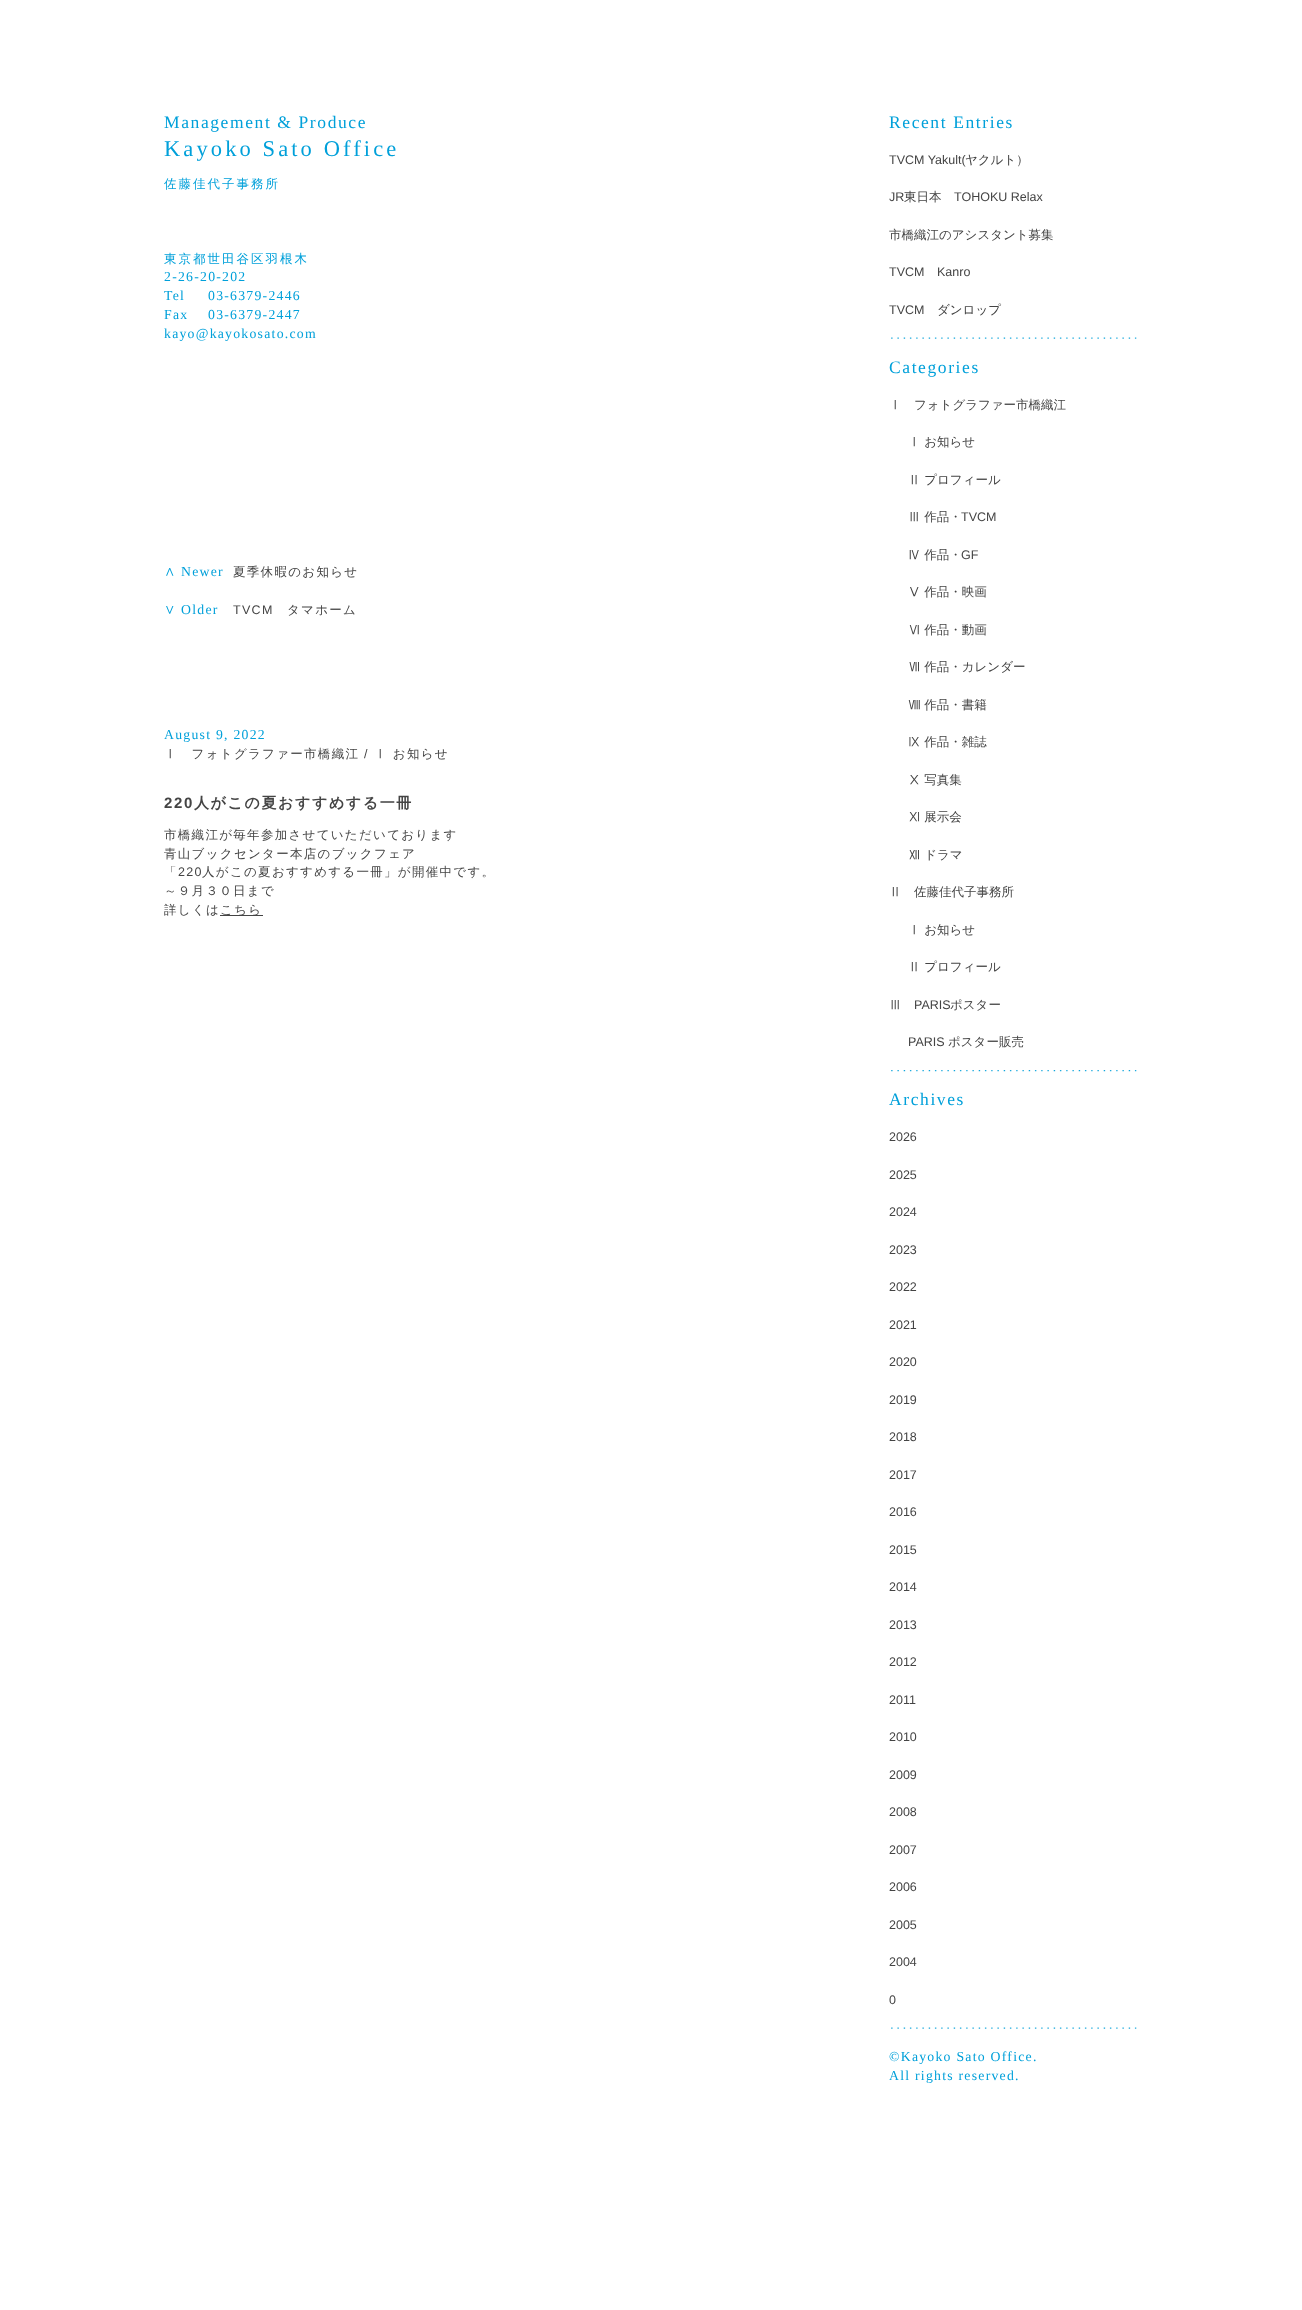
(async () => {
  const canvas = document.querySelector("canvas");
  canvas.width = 1302;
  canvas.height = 2310;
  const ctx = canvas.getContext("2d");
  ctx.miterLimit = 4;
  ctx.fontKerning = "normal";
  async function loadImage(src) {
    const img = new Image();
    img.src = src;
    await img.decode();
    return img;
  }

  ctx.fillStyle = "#ffffff";
  ctx.fillRect(0, 0, 1302, 2310);
  ctx.fillStyle = "#444444";
  ctx.fillRect(220, 915, 43, 1);
  ctx.drawImage(await loadImage("img/1.png"), 891, 337, 246, 2);
  ctx.drawImage(await loadImage("img/2.png"), 891, 1070, 246, 2);
  ctx.drawImage(await loadImage("img/1.png"), 891, 2027, 246, 2);
  ctx.letterSpacing = "1.6px";
  ctx.font = "17.5px Liberation Serif";
  ctx.fillStyle = "#00a0da";
  ctx.fillText("Management & Produce", 164, 128);
  ctx.letterSpacing = "3.1px";
  ctx.font = "22.5px Liberation Serif";
  ctx.fillText("Kayoko Sato Office", 164, 156);
  ctx.letterSpacing = "2px";
  ctx.font = "500 12.5px WenQuanYi Zen Hei";
  ctx.fillText("佐藤佳代子事務所", 164, 188);
  ctx.fillText("東京都世田谷区羽根木", 164, 263);
  ctx.letterSpacing = "1.25px";
  ctx.font = "13.75px Liberation Serif";
  for (const [text, x, y] of [
    ["2-26-20-202", 164, 281],
    ["Tel", 164, 300],
    ["03-6379-2446", 208, 300],
    ["Fax", 164, 319],
    ["03-6379-2447", 208, 319],
    ["kayo@kayokosato.com", 164, 338],
  ]) {
    ctx.fillText(text, x, y);
  }
  ctx.font = "500 13.75px WenQuanYi Zen Hei";
  ctx.fillText("∧", 164, 576);
  ctx.font = "13.75px Liberation Serif";
  ctx.fillText("Newer", 181, 576);
  ctx.letterSpacing = "1.3px";
  ctx.font = "500 12.5px WenQuanYi Zen Hei";
  ctx.fillStyle = "#444444";
  ctx.fillText("夏季休暇のお知らせ", 233, 576);
  ctx.letterSpacing = "1.25px";
  ctx.font = "500 13.75px WenQuanYi Zen Hei";
  ctx.fillStyle = "#00a0da";
  ctx.fillText("∨", 164, 614);
  ctx.font = "13.75px Liberation Serif";
  ctx.fillText("Older", 181, 614);
  ctx.letterSpacing = "1.3px";
  ctx.font = "12.5px Liberation Sans";
  ctx.fillStyle = "#444444";
  ctx.fillText("TVCM", 233, 614);
  ctx.font = "500 12.5px WenQuanYi Zen Hei";
  ctx.fillText("タマホーム", 287, 614);
  ctx.letterSpacing = "1.25px";
  ctx.font = "13.75px Liberation Serif";
  ctx.fillStyle = "#00a0da";
  ctx.fillText("August 9, 2022", 164, 739);
  ctx.letterSpacing = "1.3px";
  ctx.font = "500 12.5px WenQuanYi Zen Hei";
  ctx.fillStyle = "#444444";
  ctx.fillText("Ⅰ　フォトグラファー市橋織江", 164, 758);
  ctx.font = "12.5px Liberation Sans";
  ctx.fillText("/", 364, 758);
  ctx.font = "500 12.5px WenQuanYi Zen Hei";
  ctx.fillText("Ⅰ お知らせ", 374, 758);
  ctx.letterSpacing = "1.6px";
  ctx.font = "bold 15px Liberation Sans";
  ctx.fillText("220", 164, 808);
  ctx.font = "bold 15px WenQuanYi Zen Hei";
  ctx.fillText("人がこの夏おすすめする一冊", 194, 808);
  ctx.letterSpacing = "1.3px";
  ctx.font = "500 12.5px WenQuanYi Zen Hei";
  for (const [text, x, y] of [
    ["市橋織江が毎年参加させていただいております", 164, 839],
    ["青山ブックセンター本店のブックフェア", 164, 858],
    ["「", 164, 876],
  ]) {
    ctx.fillText(text, x, y);
  }
  ctx.font = "12.5px Liberation Sans";
  ctx.fillText("220", 178, 876);
  ctx.font = "500 12.5px WenQuanYi Zen Hei";
  for (const [text, x, y] of [
    ["人がこの夏おすすめする一冊」が開催中です。", 202, 876],
    ["～９月３０日まで", 164, 895],
    ["詳しくは", 164, 914],
    ["こちら", 220, 914],
  ]) {
    ctx.fillText(text, x, y);
  }
  ctx.letterSpacing = "1.6px";
  ctx.font = "17.5px Liberation Serif";
  ctx.fillStyle = "#00a0da";
  ctx.fillText("Recent Entries", 889, 128);
  ctx.letterSpacing = "0px";
  ctx.font = "12.5px Liberation Sans";
  ctx.fillStyle = "#444444";
  ctx.fillText("TVCM Yakult(", 889, 164);
  ctx.font = "500 12.5px WenQuanYi Zen Hei";
  ctx.fillText("ヤクルト）", 965, 164);
  ctx.font = "12.5px Liberation Sans";
  ctx.fillText("JR", 889, 201);
  ctx.font = "500 12.5px WenQuanYi Zen Hei";
  ctx.fillText("東日本", 904, 201);
  ctx.font = "12.5px Liberation Sans";
  ctx.fillText("TOHOKU Relax", 954, 201);
  ctx.font = "500 12.5px WenQuanYi Zen Hei";
  ctx.fillText("市橋織江のアシスタント募集", 889, 239);
  ctx.font = "12.5px Liberation Sans";
  for (const [text, x, y] of [
    ["TVCM", 889, 276],
    ["Kanro", 937, 276],
    ["TVCM", 889, 314],
  ]) {
    ctx.fillText(text, x, y);
  }
  ctx.font = "500 12.5px WenQuanYi Zen Hei";
  ctx.fillText("ダンロップ", 937, 314);
  ctx.letterSpacing = "1.6px";
  ctx.font = "17.5px Liberation Serif";
  ctx.fillStyle = "#00a0da";
  ctx.fillText("Categories", 889, 373);
  ctx.letterSpacing = "0px";
  ctx.font = "500 12.5px WenQuanYi Zen Hei";
  ctx.fillStyle = "#444444";
  for (const [text, x, y] of [
    ["Ⅰ　フォトグラファー市橋織江", 889, 409],
    ["Ⅰ お知らせ", 908, 446],
    ["Ⅱ プロフィール", 908, 484],
    ["Ⅲ 作品・", 908, 521],
  ]) {
    ctx.fillText(text, x, y);
  }
  ctx.font = "12.5px Liberation Sans";
  ctx.fillText("TVCM", 961, 521);
  ctx.font = "500 12.5px WenQuanYi Zen Hei";
  ctx.fillText("Ⅳ 作品・", 908, 559);
  ctx.font = "12.5px Liberation Sans";
  ctx.fillText("GF", 961, 559);
  ctx.font = "500 12.5px WenQuanYi Zen Hei";
  for (const [text, x, y] of [
    ["Ⅴ 作品・映画", 908, 596],
    ["Ⅵ 作品・動画", 908, 634],
    ["Ⅶ 作品・カレンダー", 908, 671],
    ["Ⅷ 作品・書籍", 908, 709],
    ["Ⅸ 作品・雑誌", 908, 746],
    ["Ⅹ 写真集", 908, 784],
    ["Ⅺ 展示会", 908, 821],
    ["Ⅻ ドラマ", 908, 859],
    ["Ⅱ　佐藤佳代子事務所", 889, 896],
    ["Ⅰ お知らせ", 908, 934],
    ["Ⅱ プロフィール", 908, 971],
    ["Ⅲ", 889, 1009],
  ]) {
    ctx.fillText(text, x, y);
  }
  ctx.font = "12.5px Liberation Sans";
  ctx.fillText("PARIS", 914, 1009);
  ctx.font = "500 12.5px WenQuanYi Zen Hei";
  ctx.fillText("ポスター", 950, 1009);
  ctx.font = "12.5px Liberation Sans";
  ctx.fillText("PARIS", 908, 1046);
  ctx.font = "500 12.5px WenQuanYi Zen Hei";
  ctx.fillText("ポスター販売", 948, 1046);
  ctx.letterSpacing = "1.6px";
  ctx.font = "17.5px Liberation Serif";
  ctx.fillStyle = "#00a0da";
  ctx.fillText("Archives", 889, 1105);
  ctx.letterSpacing = "0px";
  ctx.font = "12.5px Liberation Sans";
  ctx.fillStyle = "#444444";
  for (const [text, x, y] of [
    ["2026", 889, 1141],
    ["2025", 889, 1179],
    ["2024", 889, 1216],
    ["2023", 889, 1254],
    ["2022", 889, 1291],
    ["2021", 889, 1329],
    ["2020", 889, 1366],
    ["2019", 889, 1404],
    ["2018", 889, 1441],
    ["2017", 889, 1479],
    ["2016", 889, 1516],
    ["2015", 889, 1554],
    ["2014", 889, 1591],
    ["2013", 889, 1629],
    ["2012", 889, 1666],
    ["2011", 889, 1704],
    ["2010", 889, 1741],
    ["2009", 889, 1779],
    ["2008", 889, 1816],
    ["2007", 889, 1854],
    ["2006", 889, 1891],
    ["2005", 889, 1929],
    ["2004", 889, 1966],
    ["0", 889, 2004],
  ]) {
    ctx.fillText(text, x, y);
  }
  ctx.letterSpacing = "1.25px";
  ctx.font = "13.75px Liberation Serif";
  ctx.fillStyle = "#00a0da";
  ctx.fillText("©Kayoko Sato Office.", 889, 2061);
  ctx.fillText("All rights reserved.", 889, 2080);
})();
